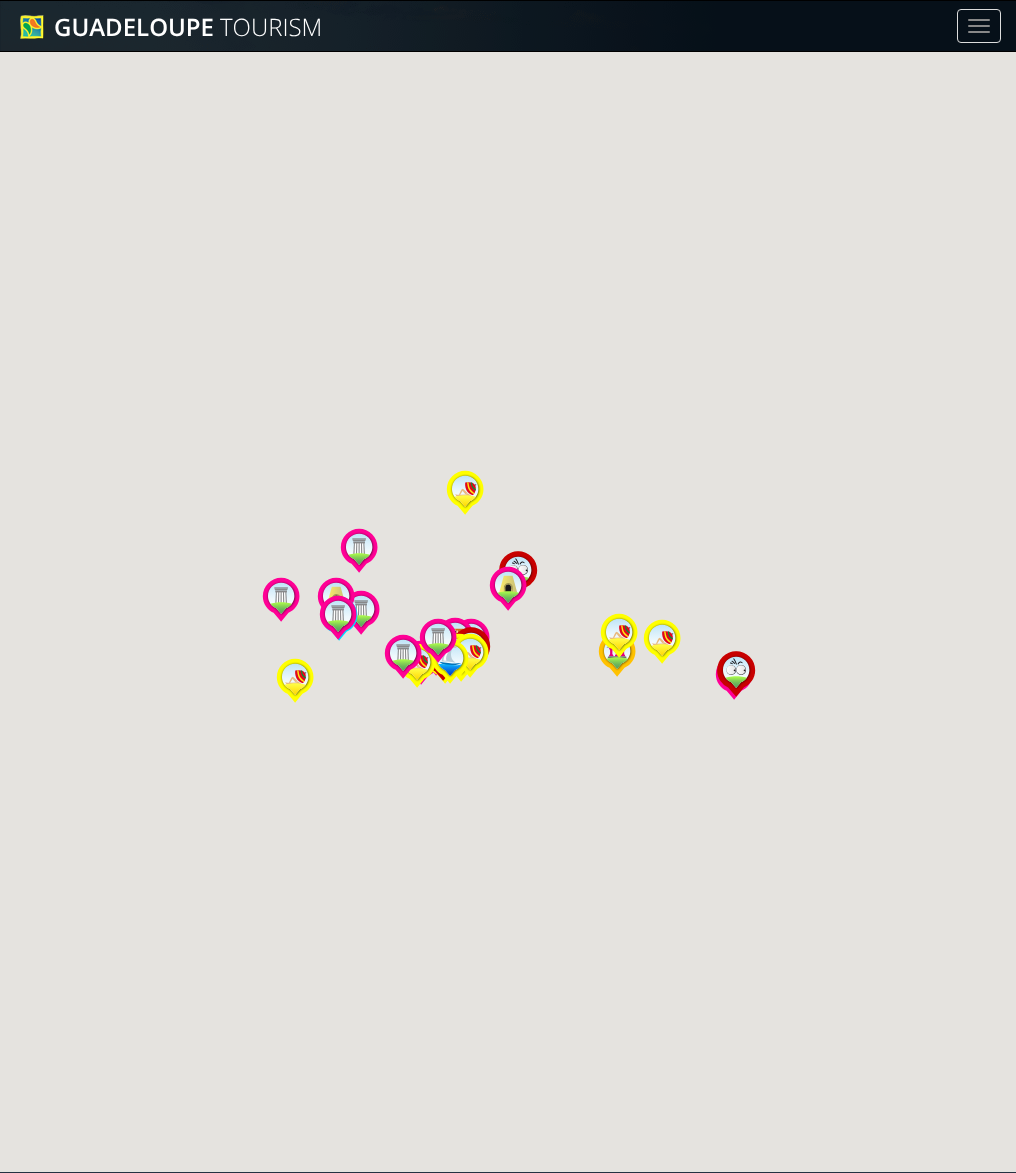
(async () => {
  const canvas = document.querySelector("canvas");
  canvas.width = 1016;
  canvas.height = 1173;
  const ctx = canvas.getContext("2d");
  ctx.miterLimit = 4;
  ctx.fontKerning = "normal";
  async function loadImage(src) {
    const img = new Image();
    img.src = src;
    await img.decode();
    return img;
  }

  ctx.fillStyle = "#253242";
  ctx.fillRect(0, 0, 1016, 1173);
  ctx.fillStyle = "#061019";
  ctx.fillRect(0, 1, 1016, 50);
  ctx.drawImage(await loadImage("img/1.png"), 0, 1, 716, 50);
  ctx.fillStyle = "#000000";
  ctx.fillRect(0, 51, 1016, 1);
  ctx.fillRect(0, 0, 1016, 1);
  ctx.drawImage(await loadImage("img/2.png"), 20, 15, 24, 24);
  ctx.beginPath();
  ctx.roundRect(957.5, 9.5, 43, 33, 3.5);
  ctx.strokeStyle = "#dddddd";
  ctx.stroke();
  ctx.fillStyle = "#888888";
  ctx.beginPath();
  ctx.roundRect(968, 19, 22, 2, 1);
  ctx.fill();
  ctx.beginPath();
  ctx.roundRect(968, 25, 22, 2, 1);
  ctx.fill();
  ctx.beginPath();
  ctx.roundRect(968, 31, 22, 2, 1);
  ctx.fill();
  ctx.fillStyle = "#e5e3df";
  ctx.fillRect(0, 52, 1016, 1120);
  ctx.drawImage(await loadImage("img/3.png"), 446, 470, 38, 45);
  ctx.drawImage(await loadImage("img/4.png"), 340, 528, 38, 45);
  ctx.drawImage(await loadImage("img/5.png"), 499, 551, 39, 37);
  ctx.drawImage(await loadImage("img/4.png"), 262, 577, 38, 45);
  ctx.drawImage(await loadImage("img/7.png"), 352, 590, 28, 45);
  ctx.drawImage(await loadImage("img/6.png"), 317, 577, 38, 31);
  ctx.drawImage(await loadImage("img/8.png"), 489, 566, 38, 45);
  ctx.drawImage(await loadImage("img/10.png"), 321, 597, 37, 44);
  ctx.drawImage(await loadImage("img/9.png"), 319, 595, 38, 45);
  ctx.drawImage(await loadImage("img/13.png"), 463, 618, 27, 24);
  ctx.drawImage(await loadImage("img/12.png"), 445, 617, 27, 17);
  ctx.drawImage(await loadImage("img/15.png"), 456, 627, 35, 30);
  ctx.drawImage(await loadImage("img/28.png"), 456, 670, 12, 12);
  ctx.drawImage(await loadImage("img/16.png"), 456, 633, 10, 43);
  ctx.drawImage(await loadImage("img/21.png"), 420, 640, 18, 36);
  ctx.drawImage(await loadImage("img/18.png"), 416, 640, 18, 45);
  ctx.drawImage(await loadImage("img/27.png"), 432, 670, 16, 14);
  ctx.drawImage(await loadImage("img/25.png"), 433, 640, 24, 41);
  ctx.drawImage(await loadImage("img/24.png"), 405, 643, 30, 45);
  ctx.drawImage(await loadImage("img/17.png"), 384, 634, 38, 45);
  ctx.drawImage(await loadImage("img/19.png"), 456, 633, 33, 45);
  ctx.drawImage(await loadImage("img/22.png"), 432, 640, 37, 44);
  ctx.drawImage(await loadImage("img/11.png"), 419, 618, 38, 45);
  ctx.drawImage(await loadImage("img/20.png"), 598, 639, 38, 38);
  ctx.drawImage(await loadImage("img/14.png"), 600, 613, 38, 45);
  ctx.drawImage(await loadImage("img/3.png"), 643, 619, 38, 45);
  ctx.drawImage(await loadImage("img/23.png"), 276, 658, 38, 45);
  ctx.drawImage(await loadImage("img/29.png"), 715, 661, 38, 39);
  ctx.drawImage(await loadImage("img/26.png"), 717, 651, 39, 46);
  ctx.font = "600 24px Open Sans";
  ctx.fillStyle = "#ffffff";
  ctx.fillText("GUADELOUPE", 54, 36);
  ctx.font = "300 24px Open Sans";
  ctx.fillText("TOURISM", 220, 36);
})();
